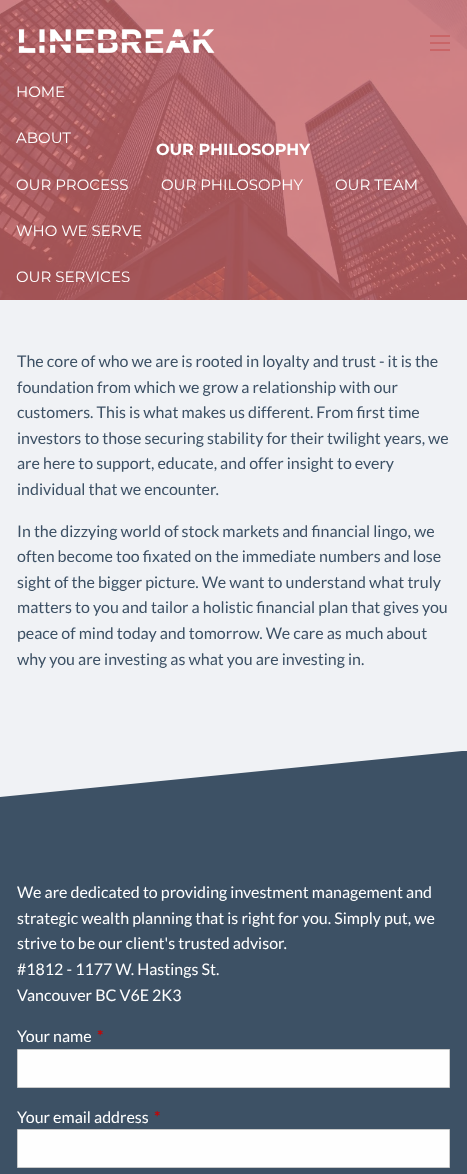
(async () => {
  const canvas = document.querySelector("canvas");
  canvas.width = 467;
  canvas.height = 1174;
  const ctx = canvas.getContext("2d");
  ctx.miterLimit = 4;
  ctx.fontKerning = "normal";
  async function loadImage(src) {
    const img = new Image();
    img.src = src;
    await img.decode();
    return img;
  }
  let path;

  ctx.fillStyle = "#f0f2f5";
  ctx.fillRect(0, 0, 467, 1174);
  ctx.drawImage(await loadImage("img/2.png"), 0, 0, 467, 300);
  ctx.drawImage(await loadImage("img/1.png"), 18, 29, 197, 24);
  for (const [x, y, w, h, color] of [
    [430, 49, 20, 2, "#c96567"],
    [430, 42, 20, 2, "#c96567"],
    [430, 35, 20, 2, "#c96567"],
    [0, 751, 467, 423, "#3d5165"],
  ]) {
    ctx.fillStyle = color;
    ctx.fillRect(x, y, w, h);
  }
  ctx.fillStyle = "#f0f2f5";
  path = new Path2D("M0 750V797L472 750Z");
  ctx.fill(path);
  ctx.fillStyle = "#fefefe";
  ctx.beginPath();
  ctx.rect(17.5, 1049.5, 432, 38);
  ctx.fill();
  ctx.strokeStyle = "#cacaca";
  ctx.stroke();
  ctx.beginPath();
  ctx.rect(17.5, 1129.5, 432, 38);
  ctx.fill();
  ctx.stroke();
  ctx.font = "100 15px 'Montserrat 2'";
  ctx.fillStyle = "#ffffff";
  for (const [text, x, y] of [
    ["HOME", 16, 97],
    ["ABOUT", 16, 143],
    ["OUR PROCESS", 16, 190],
    ["OUR PHILOSOPHY", 161, 190],
    ["OUR TEAM", 335, 190],
    ["WHO WE SERVE", 16, 236],
    ["OUR SERVICES", 16, 282],
  ]) {
    ctx.fillText(text, x, y);
  }
  ctx.font = "100 16px Montserrat";
  ctx.fillText("OUR PHILOSOPHY", 156, 155);
  ctx.font = "16px Lato";
  ctx.fillStyle = "#3d5165";
  for (const [text, x, y] of [
    ["The core of who we are is rooted in loyalty and trust - it is the", 17, 367],
    ["foundation from which we grow a relationship with our", 17, 393],
    ["customers. This is what makes us different. From first time", 17, 418],
    ["investors to those securing stability for their twilight years, we", 17, 444],
    ["are here to support, educate, and offer insight to every", 17, 469],
    ["individual that we encounter.", 17, 495],
    ["In the dizzying world of stock markets and financial lingo, we", 17, 537],
    ["often become too fixated on the immediate numbers and lose", 17, 562],
    ["sight of the bigger picture. We want to understand what truly", 17, 588],
    ["matters to you and tailor a holistic financial plan that gives you", 17, 613],
    ["peace of mind today and tomorrow. We care as much about", 17, 639],
    ["why you are investing as what you are investing in.", 17, 665],
  ]) {
    ctx.fillText(text, x, y);
  }
  ctx.fillStyle = "#ffffff";
  for (const [text, x, y] of [
    ["We are dedicated to providing investment management and", 17, 898],
    ["strategic wealth planning that is right for you. Simply put, we", 17, 924],
    ["strive to be our client's trusted advisor.", 17, 949],
    ["#1812 - 1177 W. Hastings St.", 17, 975],
    ["Vancouver BC V6E 2K3", 17, 1001],
    ["Your name", 17, 1042],
  ]) {
    ctx.fillText(text, x, y);
  }
  ctx.font = "bold 16px Lato";
  ctx.fillStyle = "#cc0000";
  ctx.fillText("*", 97, 1042);
  ctx.font = "16px Lato";
  ctx.fillStyle = "#ffffff";
  ctx.fillText("Your email address", 17, 1123);
  ctx.font = "bold 16px Lato";
  ctx.fillStyle = "#cc0000";
  ctx.fillText("*", 154, 1123);
})();
